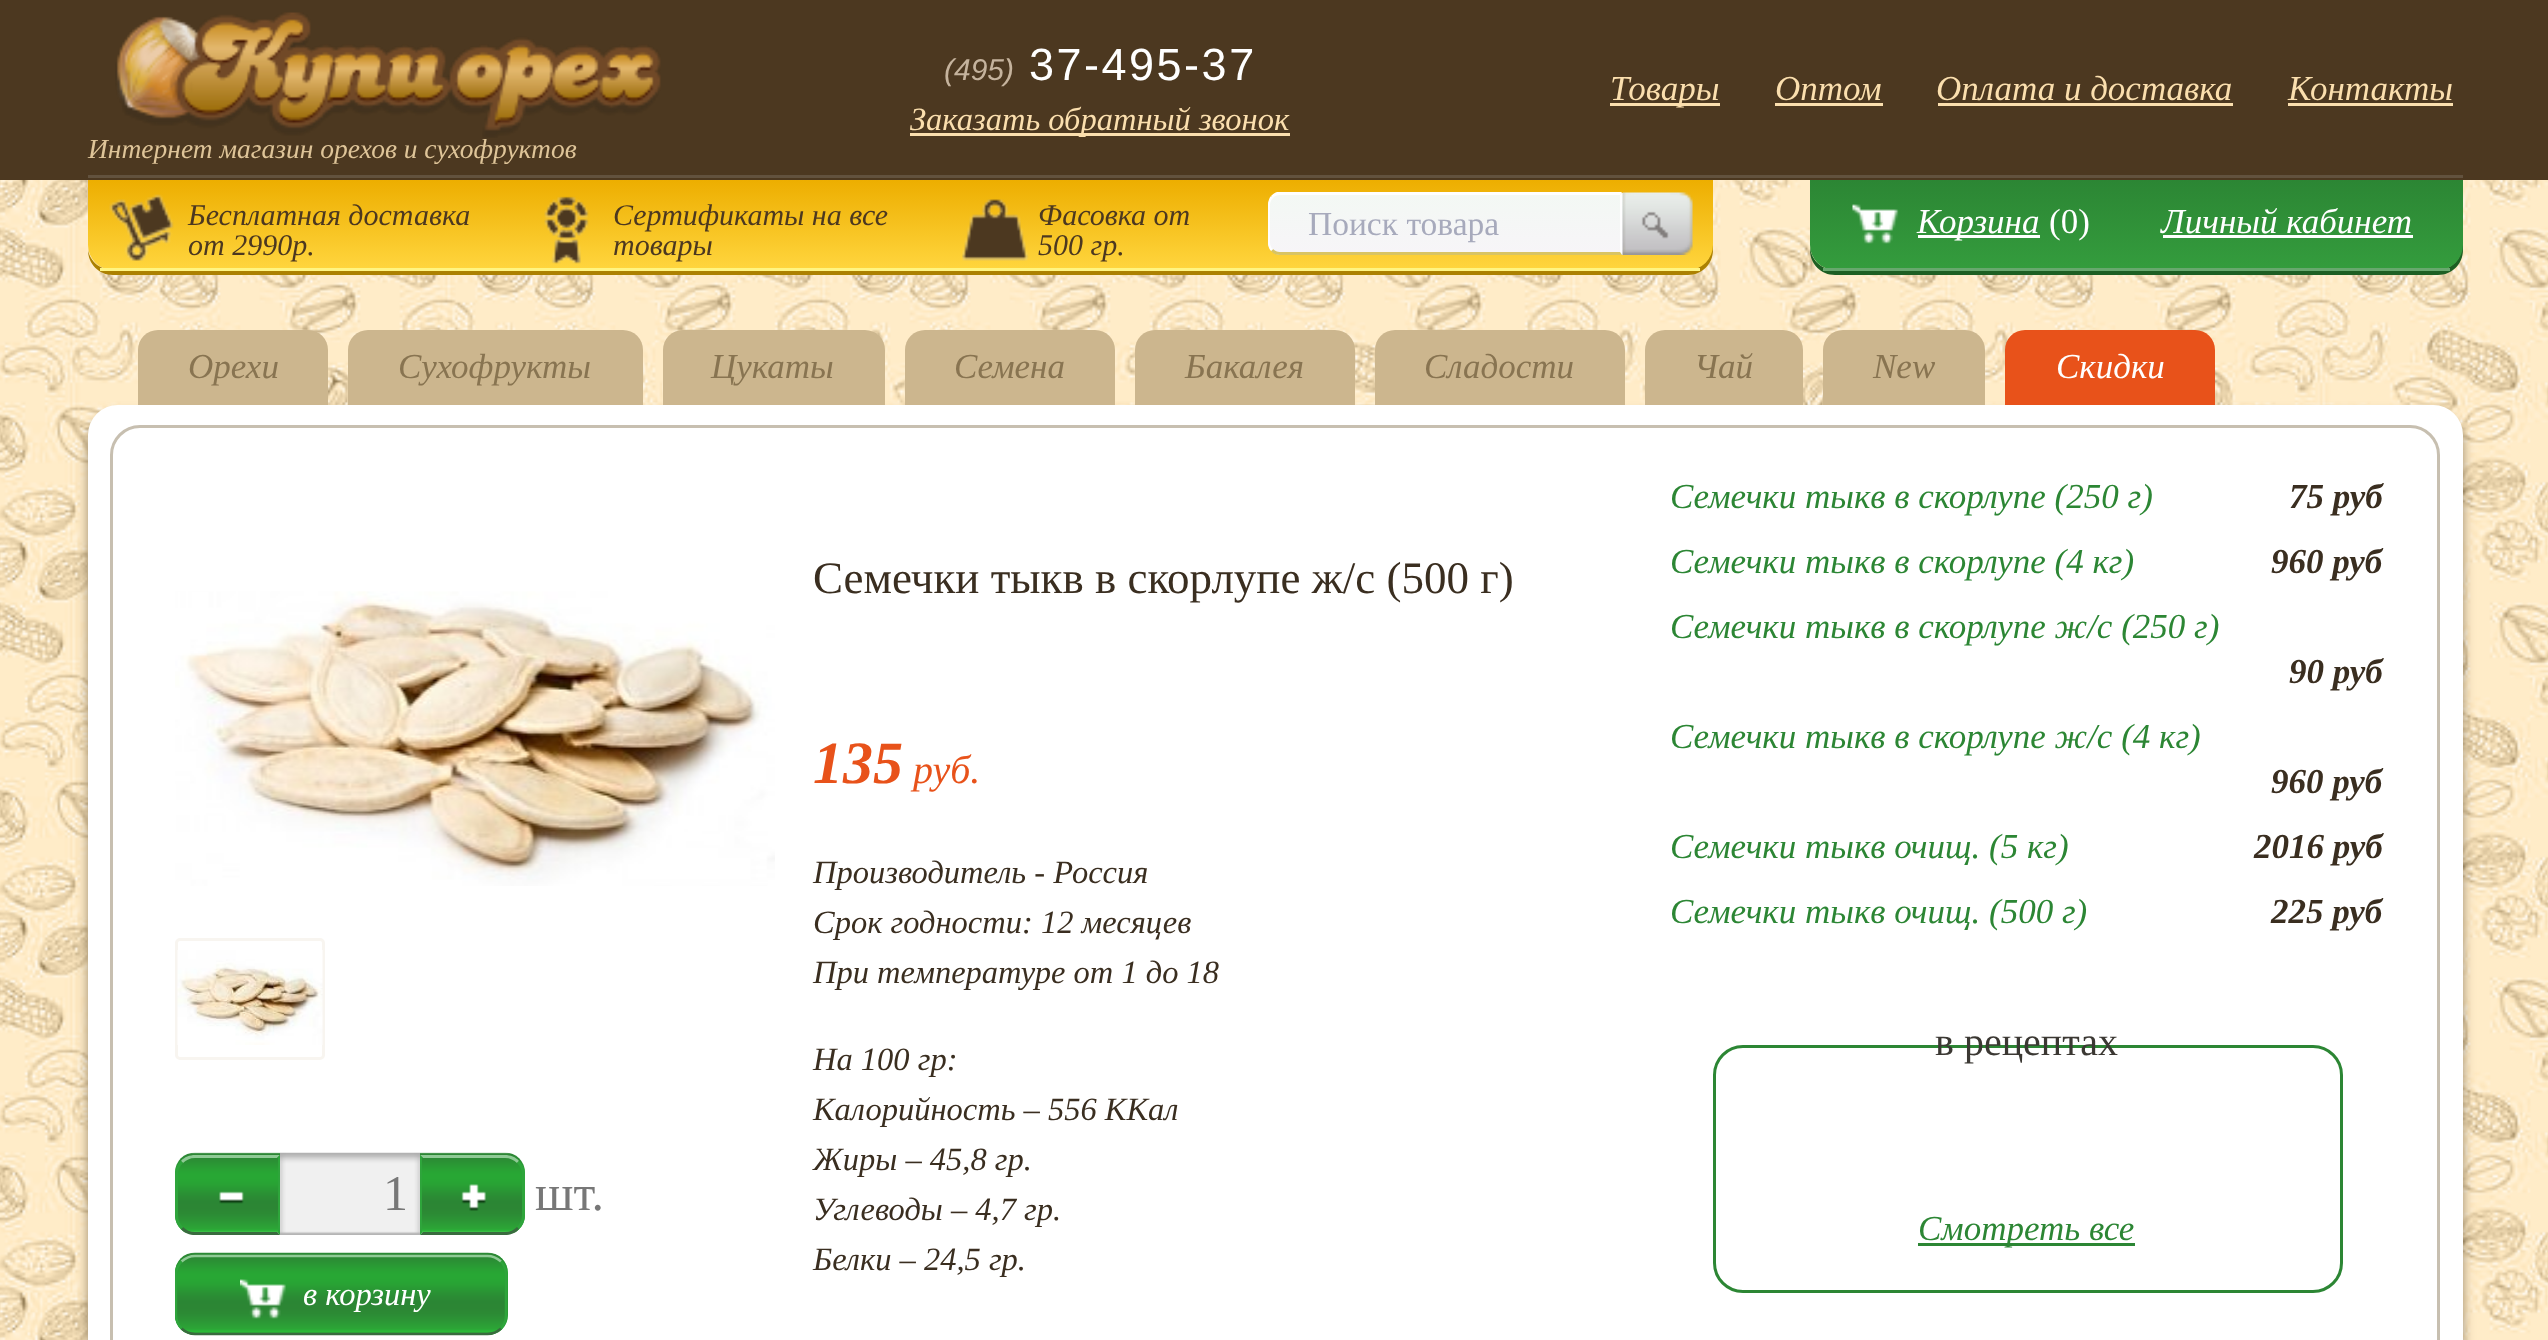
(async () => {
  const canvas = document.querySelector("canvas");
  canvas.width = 2548;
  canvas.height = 1340;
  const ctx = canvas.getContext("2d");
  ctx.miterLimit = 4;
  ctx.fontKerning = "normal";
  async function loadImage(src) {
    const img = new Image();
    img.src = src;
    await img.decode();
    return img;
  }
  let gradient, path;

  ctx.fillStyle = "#ffffff";
  ctx.fillRect(0, 0, 2548, 1340);
  ctx.drawImage(await loadImage("img/1.png"), 0, 180, 2548, 1160);
  for (const [x, y, w, h, color] of [
    [0, 0, 2548, 180, "#4c3820"],
    [88, 175, 2375, 3, "#62523e"],
    [910, 133, 380, 3, "#fbdfae"],
    [1610, 103, 110, 3, "#fbdfae"],
    [1775, 103, 108, 3, "#fbdfae"],
    [1938, 103, 295, 3, "#fbdfae"],
    [2288, 103, 165, 3, "#fbdfae"],
  ]) {
    ctx.fillStyle = color;
    ctx.fillRect(x, y, w, h);
  }
  ctx.drawImage(await loadImage("img/2.png"), 115, 12, 546, 126);
  ctx.fillStyle = "#ac8101";
  path = new Path2D("M88 250C88 264 99 275 113 275H1688C1702 275 1713 264 1713 250V185H1712V245C1712 259 1701 270 1688 270H112C100 270 90 261 88 250Z");
  ctx.fill(path);
  ctx.save();
  ctx.beginPath();
  ctx.roundRect(88, 180, 1625, 90, [0, 0, 25, 25]);
  ctx.clip();
  gradient = ctx.createLinearGradient(900, 180, 900, 268);
  gradient.addColorStop(0, "#edae00");
  gradient.addColorStop(1, "#ffd53d");
  ctx.fillStyle = gradient;
  ctx.fillRect(88, 180, 1625, 88);
  ctx.restore();
  ctx.fillStyle = "#fff582";
  ctx.fillRect(100, 268, 1600, 3);
  ctx.drawImage(await loadImage("img/3.png"), 109, 194, 65, 67);
  ctx.drawImage(await loadImage("img/4.png"), 544, 196, 45, 68);
  ctx.drawImage(await loadImage("img/5.png"), 962, 199, 67, 62);
  ctx.save();
  ctx.beginPath();
  ctx.roundRect(1268, 193, 355, 62, [13, 0, 0, 13]);
  ctx.clip();
  gradient = ctx.createLinearGradient(1445, 137, 1445, 195);
  gradient.addColorStop(0, "#f3f8f4");
  gradient.addColorStop(1, "#f7f5f8");
  ctx.fillStyle = gradient;
  ctx.fillRect(1620, 193, 3, 2);
  gradient = ctx.createLinearGradient(1445, 195, 1445, 253);
  gradient.addColorStop(0, "#f3f8f4");
  gradient.addColorStop(1, "#f7f5f8");
  ctx.fillStyle = gradient;
  ctx.fillRect(1268, 195, 355, 58);
  gradient = ctx.createLinearGradient(1445, 252, 1445, 310);
  gradient.addColorStop(0, "#f3f8f4");
  gradient.addColorStop(1, "#f7f5f8");
  ctx.fillStyle = gradient;
  ctx.fillRect(1268, 253, 355, 2);
  ctx.restore();
  ctx.fillStyle = "#ffffff";
  path = new Path2D("M1280 195C1277 195 1274 196 1273 198L1271 196C1273 194 1274 193 1277 192H1622L1620 195Z");
  ctx.fill(path);
  path = new Path2D("M1622 193V254L1620 252V195Z");
  ctx.fill(path);
  ctx.fillStyle = "#d8c463";
  path = new Path2D("M1280 255H1622L1620 252H1280C1277 252 1275 251 1273 249L1271 251C1274 254 1276 255 1280 255Z");
  ctx.fill(path);
  ctx.fillStyle = "#ffffff";
  path = new Path2D("M1271 251C1269 249 1268 246 1268 242V205C1268 202 1269 198 1271 196L1273 198C1271 200 1270 202 1270 205V242C1270 245 1271 248 1273 249Z");
  ctx.fill(path);
  ctx.drawImage(await loadImage("img/6.png"), 1622, 192, 71, 63);
  ctx.fillStyle = "#1d5f23";
  path = new Path2D("M1810 245V250C1810 264 1821 275 1835 275H2438C2452 275 2463 264 2463 250V185H2462V245C2462 259 2451 270 2438 270H1835C1821 270 1810 259 1810 245Z");
  ctx.fill(path);
  ctx.save();
  ctx.beginPath();
  ctx.roundRect(1810, 180, 653, 90, [0, 0, 25, 25]);
  ctx.clip();
  gradient = ctx.createLinearGradient(2136, 180, 2136, 268);
  gradient.addColorStop(0, "#2c8634");
  gradient.addColorStop(1, "#349c3d");
  ctx.fillStyle = gradient;
  ctx.fillRect(1810, 180, 653, 88);
  ctx.restore();
  ctx.fillStyle = "#68a86e";
  ctx.fillRect(1823, 268, 627, 3);
  ctx.drawImage(await loadImage("img/7.png"), 1852, 204, 47, 40);
  ctx.fillStyle = "#ffffff";
  ctx.fillRect(1918, 235, 122, 3);
  ctx.fillRect(2163, 235, 250, 3);
  ctx.fillStyle = "#9b8a6c";
  ctx.filter = "blur(6px)";
  ctx.beginPath();
  ctx.roundRect(88, 415, 2375, 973, 30);
  ctx.fill();
  ctx.filter = "none";
  ctx.fillStyle = "#ffffff";
  ctx.beginPath();
  ctx.roundRect(88, 405, 2375, 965, 30);
  ctx.fill();
  ctx.fillStyle = "#ccb68e";
  ctx.beginPath();
  ctx.roundRect(138, 330, 190, 75, [20, 20, 0, 0]);
  ctx.fill();
  ctx.beginPath();
  ctx.roundRect(348, 330, 295, 75, [20, 20, 0, 0]);
  ctx.fill();
  ctx.beginPath();
  ctx.roundRect(663, 330, 222, 75, [20, 20, 0, 0]);
  ctx.fill();
  ctx.beginPath();
  ctx.roundRect(905, 330, 210, 75, [20, 20, 0, 0]);
  ctx.fill();
  ctx.beginPath();
  ctx.roundRect(1135, 330, 220, 75, [20, 20, 0, 0]);
  ctx.fill();
  ctx.beginPath();
  ctx.roundRect(1375, 330, 250, 75, [20, 20, 0, 0]);
  ctx.fill();
  ctx.beginPath();
  ctx.roundRect(1645, 330, 158, 75, [20, 20, 0, 0]);
  ctx.fill();
  ctx.beginPath();
  ctx.roundRect(1823, 330, 162, 75, [20, 20, 0, 0]);
  ctx.fill();
  ctx.fillStyle = "#e8521a";
  ctx.beginPath();
  ctx.roundRect(2005, 330, 210, 75, [20, 20, 0, 0]);
  ctx.fill();
  ctx.beginPath();
  ctx.roundRect(111.5, 426.5, 2327, 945, 28.5);
  ctx.strokeStyle = "#c7bfb0";
  ctx.lineWidth = 3;
  ctx.stroke();
  ctx.drawImage(await loadImage("img/8.png"), 175, 591, 600, 295);
  ctx.beginPath();
  ctx.roundRect(176.5, 939.5, 147, 119, 3.5);
  ctx.strokeStyle = "#f8f5f0";
  ctx.stroke();
  ctx.drawImage(await loadImage("img/9.png"), 177, 950, 146, 95);
  ctx.drawImage(await loadImage("img/10.png"), 175, 1152, 105, 82);
  ctx.drawImage(await loadImage("img/11.png"), 219, 1191, 25, 13);
  ctx.fillStyle = "#8fca95";
  path = new Path2D("M195 1155C190 1155 184 1157 181 1161L183 1163C186 1160 190 1158 195 1158H277L280 1155Z");
  ctx.fill(path);
  ctx.fillStyle = "#2ea53b";
  path = new Path2D("M280 1155L277 1158H278V1232H277L280 1235Z");
  ctx.fill(path);
  ctx.fillStyle = "#396b3e";
  path = new Path2D("M280 1235L277 1232H195C190 1232 186 1230 183 1227L181 1229C184 1233 190 1235 195 1235Z");
  ctx.fill(path);
  ctx.fillStyle = "#2ea53b";
  path = new Path2D("M175 1175V1215C175 1220 177 1226 181 1229L183 1227C180 1224 178 1220 178 1215V1175C178 1170 180 1166 183 1163L181 1161C177 1164 175 1170 175 1175Z");
  ctx.fill(path);
  ctx.drawImage(await loadImage("img/12.png"), 280, 1152, 140, 83);
  ctx.drawImage(await loadImage("img/13.png"), 420, 1152, 105, 82);
  ctx.drawImage(await loadImage("img/14.png"), 461, 1184, 25, 27);
  ctx.fillStyle = "#8fca95";
  path = new Path2D("M420 1155L423 1158H505C510 1158 514 1160 517 1163L519 1161C516 1157 510 1155 505 1155Z");
  ctx.fill(path);
  ctx.fillStyle = "#2ea53b";
  path = new Path2D("M525 1215V1175C525 1170 523 1164 519 1161L517 1163C520 1166 522 1170 522 1175V1215C522 1220 520 1224 517 1227L519 1229C523 1226 525 1220 525 1215Z");
  ctx.fill(path);
  ctx.fillStyle = "#396b3e";
  path = new Path2D("M505 1235C510 1235 516 1233 519 1229L517 1227C514 1230 510 1232 505 1232H423L420 1235Z");
  ctx.fill(path);
  ctx.fillStyle = "#2ea53b";
  path = new Path2D("M420 1155V1235L423 1232H422V1158H423Z");
  ctx.fill(path);
  ctx.fillStyle = "#2ca637";
  ctx.beginPath();
  ctx.roundRect(175, 1253, 333, 82, 20);
  ctx.fill();
  ctx.drawImage(await loadImage("img/15.png"), 175, 1252, 333, 82);
  ctx.drawImage(await loadImage("img/16.png"), 240, 1279, 46, 40);
  path = new Path2D("M181.5 1261.5C185.5 1258 190 1256 195 1256H487.5C492.5 1256 497 1258 501 1261.5");
  ctx.strokeStyle = "#8fca95";
  ctx.lineWidth = 2.5;
  ctx.stroke(path);
  path = new Path2D("M501 1261.5C504.5 1265.5 506 1270 506 1275V1315C506 1320 504.5 1324.5 501 1328.5");
  ctx.strokeStyle = "#2ea53b";
  ctx.stroke(path);
  path = new Path2D("M501 1328.5C497 1332 492.5 1334 487.5 1334H195C190 1334 185.5 1332 181.5 1328.5");
  ctx.strokeStyle = "#396b3e";
  ctx.stroke(path);
  ctx.save();
  ctx.beginPath();
  ctx.rect(175, 1090, 600, 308);
  ctx.clip();
  path = new Path2D("M181.5 1328.5C178 1324.5 176 1320 176 1315V1275C176 1270 178 1265.5 181.5 1261.5");
  ctx.strokeStyle = "#2ea53b";
  ctx.stroke(path);
  ctx.restore();
  ctx.beginPath();
  ctx.roundRect(1714.5, 1046.5, 627, 245, 28.5);
  ctx.strokeStyle = "#2c8634";
  ctx.lineWidth = 3;
  ctx.stroke();
  ctx.fillStyle = "#2c8634";
  ctx.fillRect(1918, 1243, 217, 3);
  ctx.font = "italic 30px Liberation Sans";
  ctx.fillStyle = "#c5b39d";
  ctx.fillText("(495)", 944, 80);
  ctx.letterSpacing = "2.5px";
  ctx.font = "45px Liberation Sans";
  ctx.fillStyle = "#ffffff";
  ctx.fillText("37-495-37", 1029, 80);
  ctx.letterSpacing = "0px";
  ctx.font = "italic 32.5px Liberation Serif";
  ctx.fillStyle = "#fbdfae";
  ctx.fillText("Заказать обратный звонок", 910, 130);
  ctx.font = "italic 35px Liberation Serif";
  for (const [text, x, y] of [
    ["Товары", 1610, 100],
    ["Оптом", 1775, 100],
    ["Оплата и доставка", 1936, 100],
    ["Контакты", 2288, 100],
  ]) {
    ctx.fillText(text, x, y);
  }
  ctx.font = "italic 27.5px Liberation Serif";
  ctx.fillStyle = "#dec498";
  ctx.fillText("Интернет магазин орехов и сухофруктов", 88, 158);
  ctx.font = "italic 30px Liberation Serif";
  ctx.fillStyle = "#4c3820";
  for (const [text, x, y] of [
    ["Бесплатная доставка", 188, 225],
    ["от 2990р.", 188, 255],
    ["Сертификаты на все", 613, 225],
    ["товары", 613, 255],
    ["Фасовка от", 1038, 225],
    ["500 гр.", 1038, 255],
  ]) {
    ctx.fillText(text, x, y);
  }
  ctx.font = "33.5px Liberation Serif";
  ctx.fillStyle = "#a7aabc";
  ctx.fillText("Поиск товара", 1308, 235);
  ctx.font = "italic 35px Liberation Serif";
  ctx.fillStyle = "#ffffff";
  ctx.fillText("Корзина", 1917, 233);
  ctx.font = "35px Liberation Serif";
  ctx.fillText("(0)", 2049, 233);
  ctx.font = "italic 35px Liberation Serif";
  ctx.fillText("Личный кабинет", 2161, 233);
  ctx.fillStyle = "#887451";
  for (const [text, x, y] of [
    ["Орехи", 188, 378],
    ["Сухофрукты", 398, 378],
    ["Цукаты", 711, 378],
    ["Семена", 954, 378],
    ["Бакалея", 1185, 378],
    ["Сладости", 1424, 378],
    ["Чай", 1694, 378],
    ["New", 1873, 378],
  ]) {
    ctx.fillText(text, x, y);
  }
  ctx.fillStyle = "#ffffff";
  ctx.fillText("Скидки", 2056, 378);
  ctx.font = "50px Liberation Serif";
  ctx.fillStyle = "#777777";
  ctx.fillText("1", 383, 1210);
  ctx.fillText("шт.", 535, 1210);
  ctx.font = "italic 32.5px Liberation Serif";
  ctx.fillStyle = "#ffffff";
  ctx.fillText("в корзину", 303, 1305);
  ctx.font = "45px Liberation Serif";
  ctx.fillStyle = "#3a2e20";
  ctx.fillText("Семечки тыкв в скорлупе ж/с (500 г)", 813, 593);
  ctx.font = "italic bold 60px Liberation Serif";
  ctx.fillStyle = "#e8521a";
  ctx.fillText("135", 813, 783);
  ctx.font = "italic 40px Liberation Serif";
  ctx.fillText("руб.", 913, 783);
  ctx.font = "italic 32.5px Liberation Serif";
  ctx.fillStyle = "#3a2e20";
  for (const [text, x, y] of [
    ["Производитель - Россия", 813, 883],
    ["Срок годности: 12 месяцев", 813, 933],
    ["При температуре от 1 до 18", 813, 983],
    ["На 100 гр:", 813, 1070],
    ["Калорийность – 556 ККал", 813, 1120],
    ["Жиры – 45,8 гр.", 813, 1170],
    ["Углеводы – 4,7 гр.", 813, 1220],
    ["Белки – 24,5 гр.", 813, 1270],
  ]) {
    ctx.fillText(text, x, y);
  }
  ctx.font = "italic 35px Liberation Serif";
  ctx.fillStyle = "#2c8634";
  ctx.fillText("Семечки тыкв в скорлупе (250 г)", 1670, 508);
  ctx.font = "italic bold 35px Liberation Serif";
  ctx.fillStyle = "#3a2e20";
  ctx.fillText("75 руб", 2289, 508);
  ctx.font = "italic 35px Liberation Serif";
  ctx.fillStyle = "#2c8634";
  ctx.fillText("Семечки тыкв в скорлупе (4 кг)", 1670, 573);
  ctx.font = "italic bold 35px Liberation Serif";
  ctx.fillStyle = "#3a2e20";
  ctx.fillText("960 руб", 2271, 573);
  ctx.font = "italic 35px Liberation Serif";
  ctx.fillStyle = "#2c8634";
  ctx.fillText("Семечки тыкв в скорлупе ж/с (250 г)", 1670, 638);
  ctx.font = "italic bold 35px Liberation Serif";
  ctx.fillStyle = "#3a2e20";
  ctx.fillText("90 руб", 2289, 683);
  ctx.font = "italic 35px Liberation Serif";
  ctx.fillStyle = "#2c8634";
  ctx.fillText("Семечки тыкв в скорлупе ж/с (4 кг)", 1670, 748);
  ctx.font = "italic bold 35px Liberation Serif";
  ctx.fillStyle = "#3a2e20";
  ctx.fillText("960 руб", 2271, 793);
  ctx.font = "italic 35px Liberation Serif";
  ctx.fillStyle = "#2c8634";
  ctx.fillText("Семечки тыкв очищ. (5 кг)", 1670, 858);
  ctx.font = "italic bold 35px Liberation Serif";
  ctx.fillStyle = "#3a2e20";
  ctx.fillText("2016 руб", 2254, 858);
  ctx.font = "italic 35px Liberation Serif";
  ctx.fillStyle = "#2c8634";
  ctx.fillText("Семечки тыкв очищ. (500 г)", 1670, 923);
  ctx.font = "italic bold 35px Liberation Serif";
  ctx.fillStyle = "#3a2e20";
  ctx.fillText("225 руб", 2271, 923);
  ctx.font = "40px Liberation Serif";
  ctx.fillStyle = "#3b3833";
  ctx.fillText("в рецептах", 1935, 1055);
  ctx.font = "italic 35px Liberation Serif";
  ctx.fillStyle = "#2c8634";
  ctx.fillText("Смотреть все", 1918, 1240);
})();
